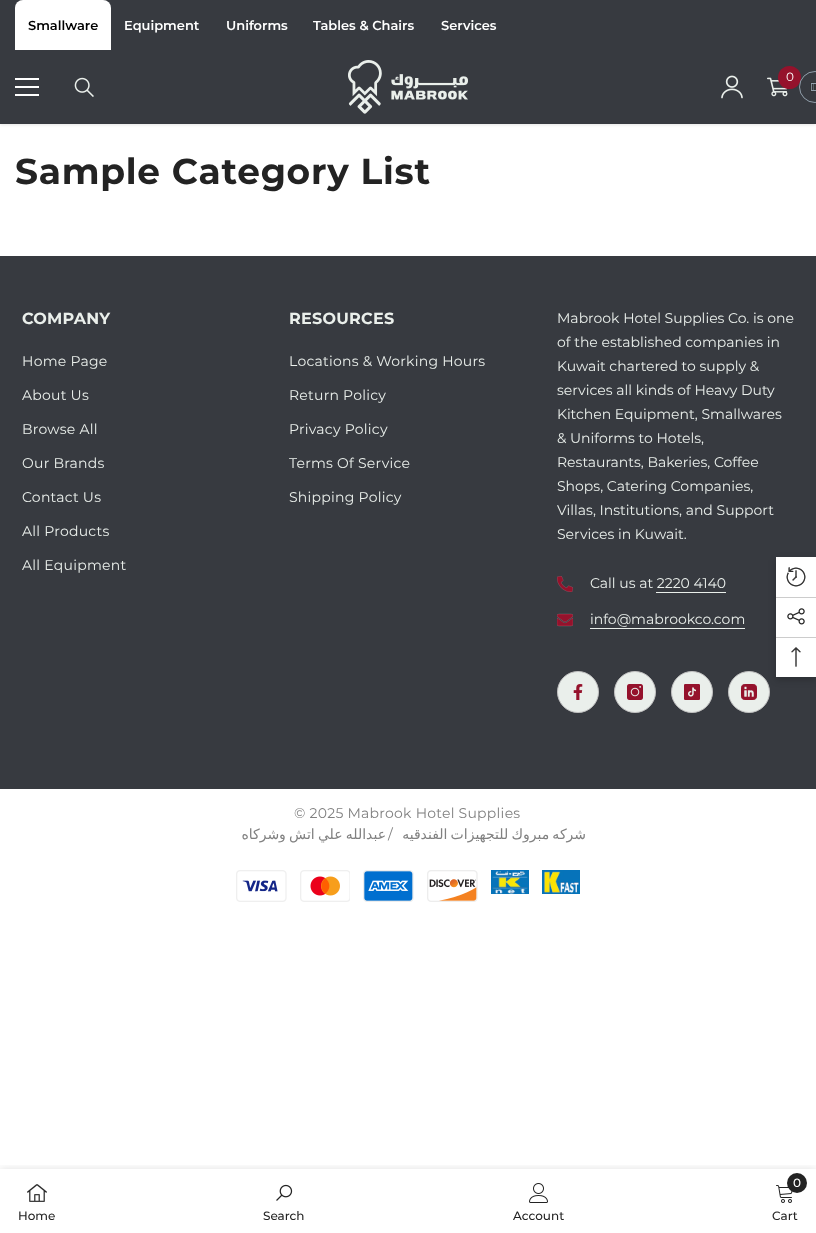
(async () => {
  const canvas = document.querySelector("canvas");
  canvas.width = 816;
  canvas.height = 1233;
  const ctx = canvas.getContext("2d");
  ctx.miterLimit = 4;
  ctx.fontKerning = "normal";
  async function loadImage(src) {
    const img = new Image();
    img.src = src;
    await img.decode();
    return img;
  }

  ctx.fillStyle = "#ffffff";
  ctx.fillRect(0, 0, 816, 1233);
  ctx.fillStyle = "rgba(0, 0, 0, 0.1)";
  ctx.filter = "blur(1.5px)";
  ctx.beginPath();
  ctx.rect(0, 51, 816, 74);
  ctx.fill();
  ctx.filter = "none";
  ctx.fillStyle = "#373a40";
  ctx.fillRect(0, 0, 816, 124);
  ctx.fillStyle = "#ffffff";
  ctx.beginPath();
  ctx.roundRect(15, 0, 96, 50, [8, 8, 0, 0]);
  ctx.fill();
  for (const [x, y, w, h, color] of [
    [15, 86, 24, 2, "#ffffff"],
    [15, 78, 24, 2, "#ffffff"],
    [15, 94, 24, 2, "#ffffff"],
  ]) {
    ctx.fillStyle = color;
    ctx.fillRect(x, y, w, h);
  }
  ctx.drawImage(await loadImage("img/1.png"), 74, 77, 20, 20);
  ctx.drawImage(await loadImage("img/2.png"), 348, 60, 120, 54);
  ctx.drawImage(await loadImage("img/3.png"), 721, 75, 22, 24);
  ctx.drawImage(await loadImage("img/4.png"), 767, 77, 21, 20);
  ctx.fillStyle = "#95122c";
  ctx.beginPath();
  ctx.arc(789.5, 77.5, 11.5, 0, Math.PI * 2);
  ctx.fill();
  ctx.beginPath();
  ctx.arc(815, 87, 15.5, 0, Math.PI * 2);
  ctx.strokeStyle = "#919fab";
  ctx.stroke();
  ctx.drawImage(await loadImage("img/5.png"), 810, 82, 6, 10);
  ctx.fillStyle = "#373a40";
  ctx.fillRect(0, 256, 816, 533);
  ctx.drawImage(await loadImage("img/6.png"), 557, 576, 16, 16);
  ctx.fillStyle = "#eaefeb";
  ctx.fillRect(656, 592, 70, 1);
  ctx.drawImage(await loadImage("img/7.png"), 557, 613, 16, 14);
  ctx.fillRect(590, 628, 155, 1);
  ctx.beginPath();
  ctx.arc(578, 692, 20.5, 0, Math.PI * 2);
  ctx.fill();
  ctx.strokeStyle = "#c2c2c2";
  ctx.stroke();
  ctx.drawImage(await loadImage("img/8.png"), 573, 684, 10, 16);
  ctx.beginPath();
  ctx.arc(635, 692, 20.5, 0, Math.PI * 2);
  ctx.fill();
  ctx.stroke();
  ctx.drawImage(await loadImage("img/9.png"), 627, 684, 16, 16);
  ctx.beginPath();
  ctx.arc(692, 692, 20.5, 0, Math.PI * 2);
  ctx.fill();
  ctx.stroke();
  ctx.drawImage(await loadImage("img/10.png"), 684, 684, 16, 16);
  ctx.beginPath();
  ctx.arc(749, 692, 20.5, 0, Math.PI * 2);
  ctx.fill();
  ctx.stroke();
  ctx.drawImage(await loadImage("img/11.png"), 741, 684, 16, 16);
  ctx.drawImage(await loadImage("img/12.png"), 236, 870, 51, 32);
  ctx.drawImage(await loadImage("img/13.png"), 300, 870, 50, 32);
  ctx.drawImage(await loadImage("img/14.png"), 363, 870, 51, 32);
  ctx.drawImage(await loadImage("img/15.png"), 427, 870, 51, 32);
  ctx.drawImage(await loadImage("img/16.png"), 491, 870, 38, 24);
  ctx.drawImage(await loadImage("img/17.png"), 542, 870, 38, 24);
  ctx.save();
  ctx.beginPath();
  ctx.rect(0, 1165, 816, 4);
  ctx.clip();
  ctx.fillStyle = "rgba(0, 0, 0, 0.12)";
  ctx.filter = "blur(4.5px)";
  ctx.beginPath();
  ctx.rect(0, 1169, 816, 64);
  ctx.fill();
  ctx.filter = "none";
  ctx.restore();
  ctx.drawImage(await loadImage("img/18.png"), 27, 1184, 20, 18);
  ctx.drawImage(await loadImage("img/19.png"), 276, 1184, 17, 17);
  ctx.drawImage(await loadImage("img/20.png"), 529, 1183, 19, 20);
  ctx.drawImage(await loadImage("img/21.png"), 776, 1185, 17, 18);
  ctx.fillStyle = "#232323";
  ctx.beginPath();
  ctx.arc(797, 1183, 10, 0, Math.PI * 2);
  ctx.fill();
  ctx.fillStyle = "rgba(0, 0, 0, 0.2)";
  ctx.filter = "blur(3.5px)";
  ctx.beginPath();
  ctx.rect(776, 560, 40, 120);
  ctx.fill();
  ctx.filter = "none";
  ctx.fillStyle = "#ffffff";
  ctx.fillRect(776, 557, 40, 120);
  ctx.drawImage(await loadImage("img/22.png"), 786, 567, 20, 20);
  ctx.fillStyle = "#cccccc";
  ctx.fillRect(776, 597, 40, 1);
  ctx.drawImage(await loadImage("img/23.png"), 787, 608, 18, 17);
  ctx.fillRect(776, 637, 40, 1);
  ctx.drawImage(await loadImage("img/24.png"), 791, 647, 10, 20);
  ctx.font = "600 13px Montserrat";
  ctx.fillStyle = "#000000";
  ctx.fillText("Smallware", 28, 30);
  ctx.fillStyle = "#ffffff";
  for (const [text, x, y] of [
    ["Equipment", 124, 30],
    ["Uniforms", 226, 30],
    ["Tables & Chairs", 313, 30],
    ["Services", 441, 30],
  ]) {
    ctx.fillText(text, x, y);
  }
  ctx.font = "12px Montserrat";
  ctx.fillText("0", 786, 81);
  ctx.letterSpacing = "0.75px";
  ctx.font = "bold 36px Montserrat";
  ctx.fillStyle = "#232323";
  ctx.fillText("Sample Category List", 15, 184);
  ctx.letterSpacing = "0.25px";
  ctx.font = "bold 16px Montserrat";
  ctx.fillStyle = "#eaefeb";
  ctx.fillText("COMPANY", 22, 324);
  ctx.font = "14px Montserrat";
  for (const [text, x, y] of [
    ["Home Page", 22, 366],
    ["About Us", 22, 400],
    ["Browse All", 22, 434],
    ["Our Brands", 22, 468],
    ["Contact Us", 22, 502],
    ["All Products", 22, 536],
    ["All Equipment", 22, 570],
  ]) {
    ctx.fillText(text, x, y);
  }
  ctx.font = "bold 16px Montserrat";
  ctx.fillText("RESOURCES", 289, 324);
  ctx.font = "14px Montserrat";
  for (const [text, x, y] of [
    ["Locations & Working Hours", 289, 366],
    ["Return Policy", 289, 400],
    ["Privacy Policy", 289, 434],
    ["Terms Of Service", 289, 468],
    ["Shipping Policy", 289, 502],
  ]) {
    ctx.fillText(text, x, y);
  }
  ctx.letterSpacing = "0px";
  for (const [text, x, y] of [
    ["Mabrook Hotel Supplies Co. is one", 557, 323],
    ["of the established companies in", 557, 347],
    ["Kuwait chartered to supply &", 557, 371],
    ["services all kinds of Heavy Duty", 557, 395],
    ["Kitchen Equipment, Smallwares", 557, 419],
    ["& Uniforms to Hotels,", 557, 443],
    ["Restaurants, Bakeries, Coffee", 557, 467],
    ["Shops, Catering Companies,", 557, 491],
    ["Villas, Institutions, and Support", 557, 515],
    ["Services in Kuwait.", 557, 539],
    ["Call us at 2220 4140", 590, 588],
    ["info@mabrookco.com", 590, 624],
  ]) {
    ctx.fillText(text, x, y);
  }
  ctx.letterSpacing = "0.25px";
  ctx.fillStyle = "#808080";
  ctx.fillText("© 2025 Mabrook Hotel Supplies", 294, 818);
  ctx.wordSpacing = "-1.5px";
  ctx.direction = "rtl";
  ctx.font = "14px DejaVu Sans";
  ctx.fillText("عبدالله علي اتش وشركاه", 386, 839);
  ctx.wordSpacing = "0px";
  ctx.font = "14px Montserrat";
  ctx.fillText("/", 393, 839);
  ctx.wordSpacing = "-1.5px";
  ctx.font = "14px DejaVu Sans";
  ctx.fillText("شركه مبروك للتجهيزات الفندقيه", 586, 839);
  ctx.letterSpacing = "0px";
  ctx.wordSpacing = "0px";
  ctx.direction = "ltr";
  ctx.font = "500 12px Montserrat";
  ctx.fillStyle = "#232323";
  for (const [text, x, y] of [
    ["Home", 18, 1220],
    ["Search", 263, 1220],
    ["Account", 513, 1220],
  ]) {
    ctx.fillText(text, x, y);
  }
  ctx.fillStyle = "#ffffff";
  ctx.fillText("0", 793, 1187);
  ctx.fillStyle = "#232323";
  ctx.fillText("Cart", 772, 1220);
})();
